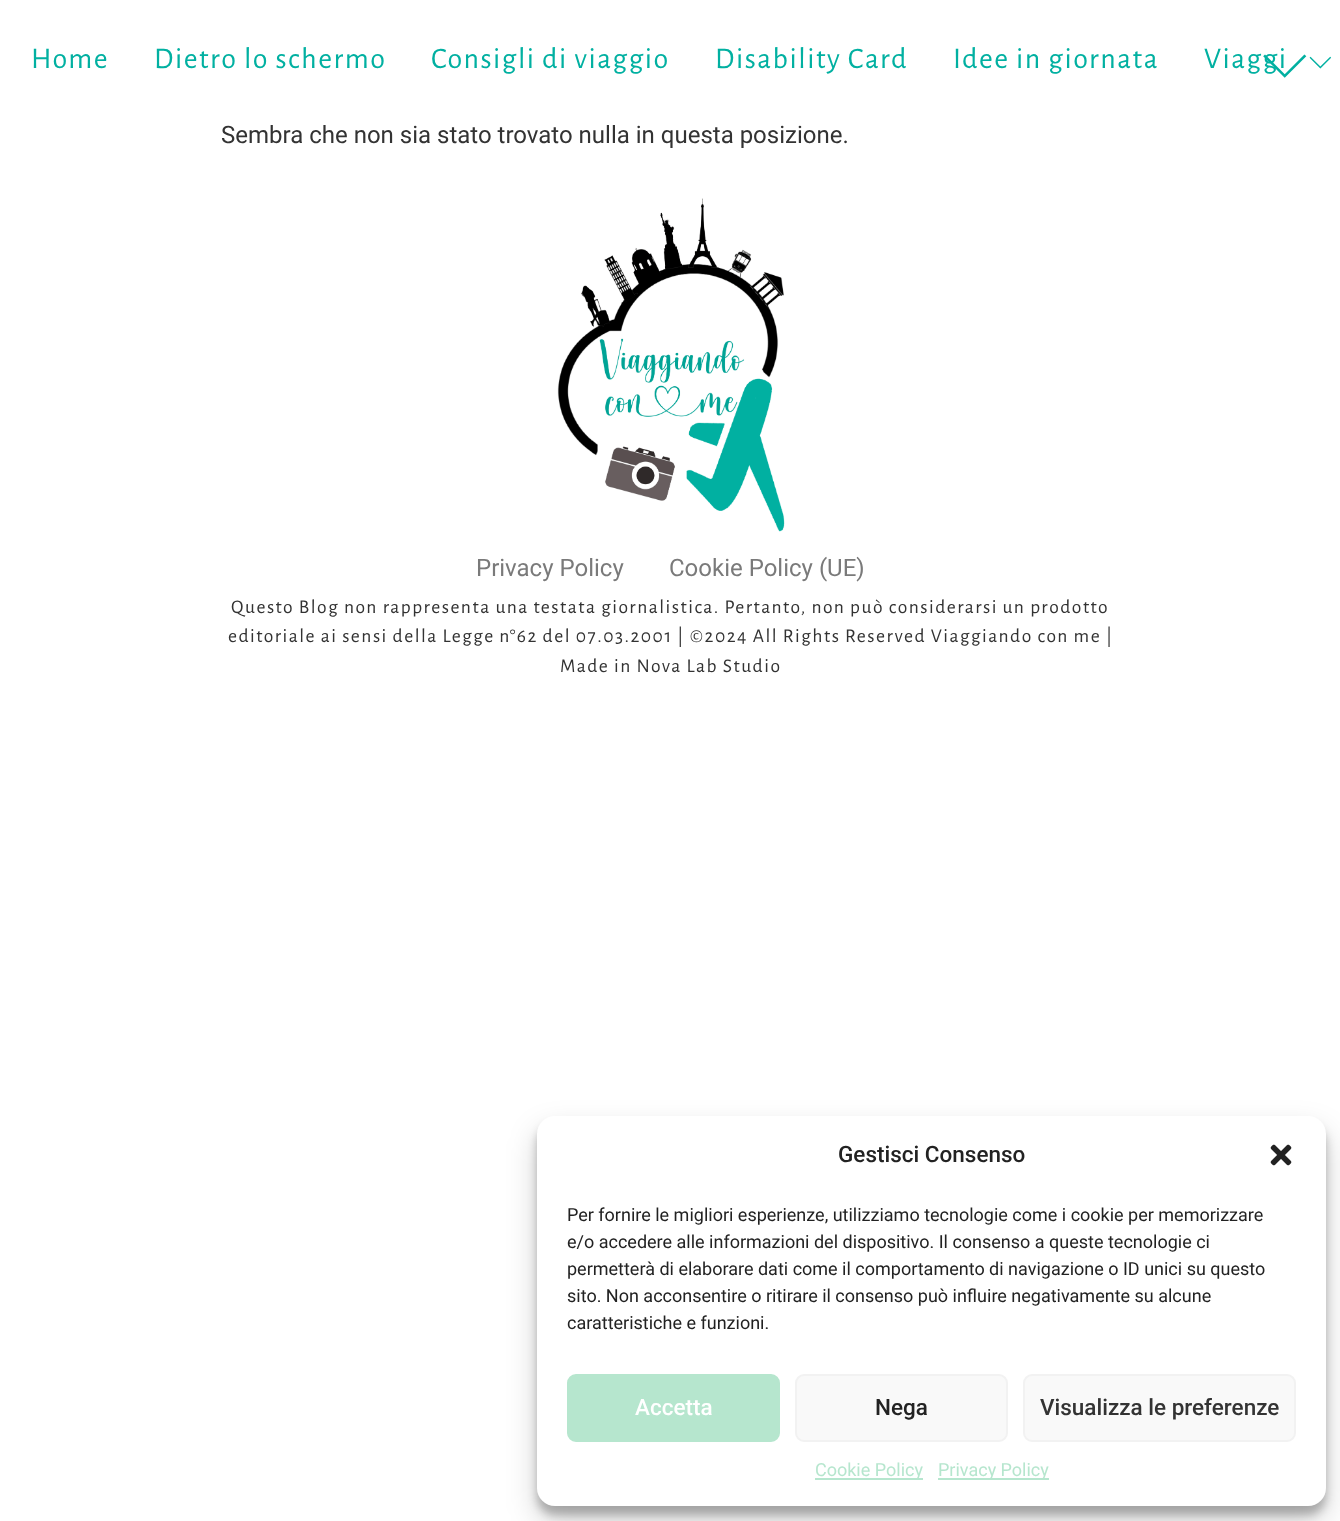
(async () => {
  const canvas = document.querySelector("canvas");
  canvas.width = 1340;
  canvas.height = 1521;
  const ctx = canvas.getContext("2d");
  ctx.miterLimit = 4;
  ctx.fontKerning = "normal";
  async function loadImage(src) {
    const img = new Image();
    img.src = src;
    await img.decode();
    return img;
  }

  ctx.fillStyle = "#ffffff";
  ctx.fillRect(0, 0, 1340, 1521);
  ctx.drawImage(await loadImage("img/1.png"), 557, 198, 228, 334);
  ctx.fillStyle = "rgba(0, 0, 0, 0.23)";
  ctx.filter = "blur(4.5px)";
  ctx.beginPath();
  ctx.roundRect(537, 1125, 789, 390, 18);
  ctx.fill();
  ctx.filter = "none";
  ctx.fillStyle = "rgba(0, 0, 0, 0.19)";
  ctx.filter = "blur(15px)";
  ctx.beginPath();
  ctx.roundRect(537, 1131, 789, 390, 18);
  ctx.fill();
  ctx.filter = "none";
  ctx.fillStyle = "#ffffff";
  ctx.beginPath();
  ctx.roundRect(537, 1116, 789, 390, 18);
  ctx.fill();
  ctx.drawImage(await loadImage("img/2.png"), 1270, 1144, 22, 22);
  ctx.fillStyle = "#b6e6ce";
  ctx.beginPath();
  ctx.roundRect(568, 1375, 211, 66, 8);
  ctx.fill();
  ctx.strokeStyle = "#b6e6ce";
  ctx.lineWidth = 2;
  ctx.stroke();
  ctx.fillStyle = "#f9f9f9";
  ctx.beginPath();
  ctx.roundRect(796, 1375, 211, 66, 8);
  ctx.fill();
  ctx.strokeStyle = "#f2f2f2";
  ctx.stroke();
  ctx.beginPath();
  ctx.roundRect(1024, 1375, 271, 66, 8);
  ctx.fill();
  ctx.stroke();
  ctx.fillStyle = "#b6e6ce";
  ctx.fillRect(815, 1478, 108, 2);
  ctx.fillRect(938, 1478, 111, 2);
  ctx.letterSpacing = "1.5px";
  ctx.font = "30px Alegreya Sans";
  ctx.fillStyle = "#01b0a1";
  for (const [text, x, y] of [
    ["Home", 31, 68],
    ["Dietro lo schermo", 154, 68],
    ["Consigli di viaggio", 431, 68],
    ["Disability Card", 715, 68],
    ["Idee in giornata", 953, 68],
    ["Viaggi", 1204, 68],
  ]) {
    ctx.fillText(text, x, y);
  }
  ctx.font = "60px FreeSerif";
  ctx.fillText("⌵", 1262, 77);
  ctx.font = "30px FreeSerif";
  ctx.fillText("⌵", 1309, 68);
  ctx.letterSpacing = "0px";
  ctx.font = "24px Roboto";
  ctx.fillStyle = "#333333";
  ctx.fillText("Sembra che non sia stato trovato nulla in questa posizione.", 221, 143);
  ctx.fillStyle = "#7a7a7a";
  ctx.fillText("Privacy Policy", 476, 576);
  ctx.fillText("Cookie Policy (UE)", 669, 576);
  ctx.letterSpacing = "1.5px";
  ctx.font = "19.5px Alegreya Sans";
  ctx.fillStyle = "#333333";
  for (const [text, x, y] of [
    ["Questo Blog non rappresenta una testata giornalistica. Pertanto, non può considerarsi un prodotto", 231, 613],
    ["editoriale ai sensi della Legge n°62 del 07.03.2001 | ©2024 All Rights Reserved Viaggiando con me |", 228, 642],
    ["Made in Nova Lab Studio", 560, 672],
  ]) {
    ctx.fillText(text, x, y);
  }
  ctx.letterSpacing = "0px";
  ctx.font = "500 22.5px Roboto";
  ctx.fillStyle = "#222222";
  ctx.fillText("Gestisci Consenso", 838, 1162);
  ctx.font = "18px Roboto";
  for (const [text, x, y] of [
    ["Per fornire le migliori esperienze, utilizziamo tecnologie come i cookie per memorizzare", 567, 1221],
    ["e/o accedere alle informazioni del dispositivo. Il consenso a queste tecnologie ci", 567, 1248],
    ["permetterà di elaborare dati come il comportamento di navigazione o ID unici su questo", 567, 1275],
    ["sito. Non acconsentire o ritirare il consenso può influire negativamente su alcune", 567, 1302],
    ["caratteristiche e funzioni.", 567, 1329],
  ]) {
    ctx.fillText(text, x, y);
  }
  ctx.font = "500 22.5px Roboto";
  ctx.fillStyle = "#ffffff";
  ctx.fillText("Accetta", 635, 1415);
  ctx.fillStyle = "#222222";
  ctx.fillText("Nega", 875, 1415);
  ctx.fillStyle = "#333333";
  ctx.fillText("Visualizza le preferenze", 1040, 1415);
  ctx.font = "18px Roboto";
  ctx.fillStyle = "#b6e6ce";
  ctx.fillText("Cookie Policy", 815, 1476);
  ctx.fillText("Privacy Policy", 938, 1476);
})();
